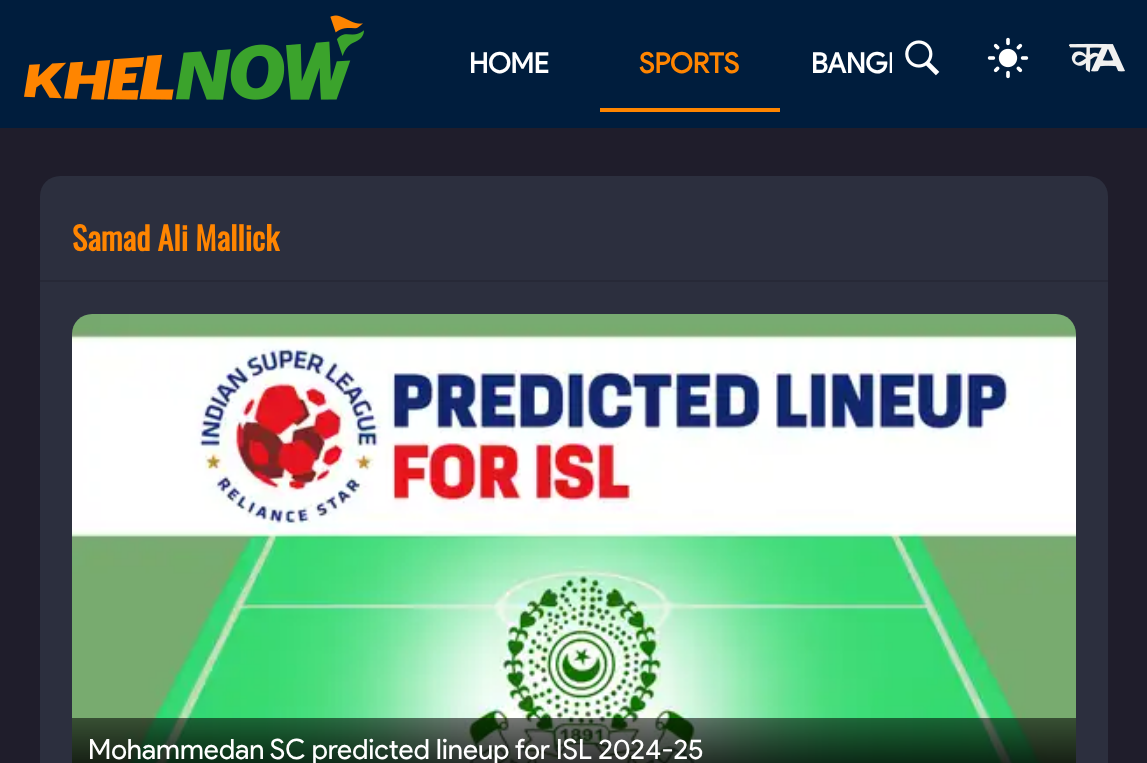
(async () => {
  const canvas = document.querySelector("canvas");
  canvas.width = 1147;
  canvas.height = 763;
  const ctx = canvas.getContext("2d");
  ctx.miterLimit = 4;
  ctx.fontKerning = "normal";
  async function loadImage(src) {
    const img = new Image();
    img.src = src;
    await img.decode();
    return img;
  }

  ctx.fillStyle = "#1f1d2b";
  ctx.fillRect(0, 0, 1147, 763);
  ctx.fillStyle = "#001d3d";
  ctx.fillRect(0, 0, 1147, 128);
  ctx.drawImage(await loadImage("img/1.png"), 24, 15, 340, 85);
  ctx.fillStyle = "#ff8500";
  ctx.fillRect(600, 108, 180, 4);
  ctx.drawImage(await loadImage("img/2.png"), 905, 40, 35, 36);
  ctx.drawImage(await loadImage("img/3.png"), 987, 37, 42, 42);
  ctx.drawImage(await loadImage("img/4.png"), 1068, 43, 57, 30);
  ctx.fillStyle = "#2c2f3e";
  ctx.beginPath();
  ctx.roundRect(40, 176, 1068, 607, 20);
  ctx.fill();
  ctx.fillStyle = "#272937";
  ctx.fillRect(40, 280, 1068, 2);
  ctx.drawImage(await loadImage("img/5.png"), 72, 314, 1004, 449);
  ctx.drawImage(await loadImage("img/6.png"), 72, 718, 1004, 45);
  ctx.font = "bold 28px Product Sans";
  ctx.fillStyle = "#ffffff";
  ctx.fillText("HOME", 469, 73);
  ctx.fillStyle = "#ff8500";
  ctx.fillText("SPORTS", 639, 73);
  ctx.save();
  ctx.beginPath();
  ctx.rect(780, 16, 112, 96);
  ctx.clip();
  ctx.fillStyle = "#ffffff";
  ctx.fillText("BANGL", 811, 73);
  ctx.restore();
  ctx.font = "bold 32px Oswald";
  ctx.fillText("Samad Ali Mallick", 72, 251);
  ctx.font = "28px Product Sans";
  ctx.fillStyle = "#ffffff";
  ctx.fillText("Mohammedan SC predicted lineup for ISL 2024-25", 88, 759);
})();
